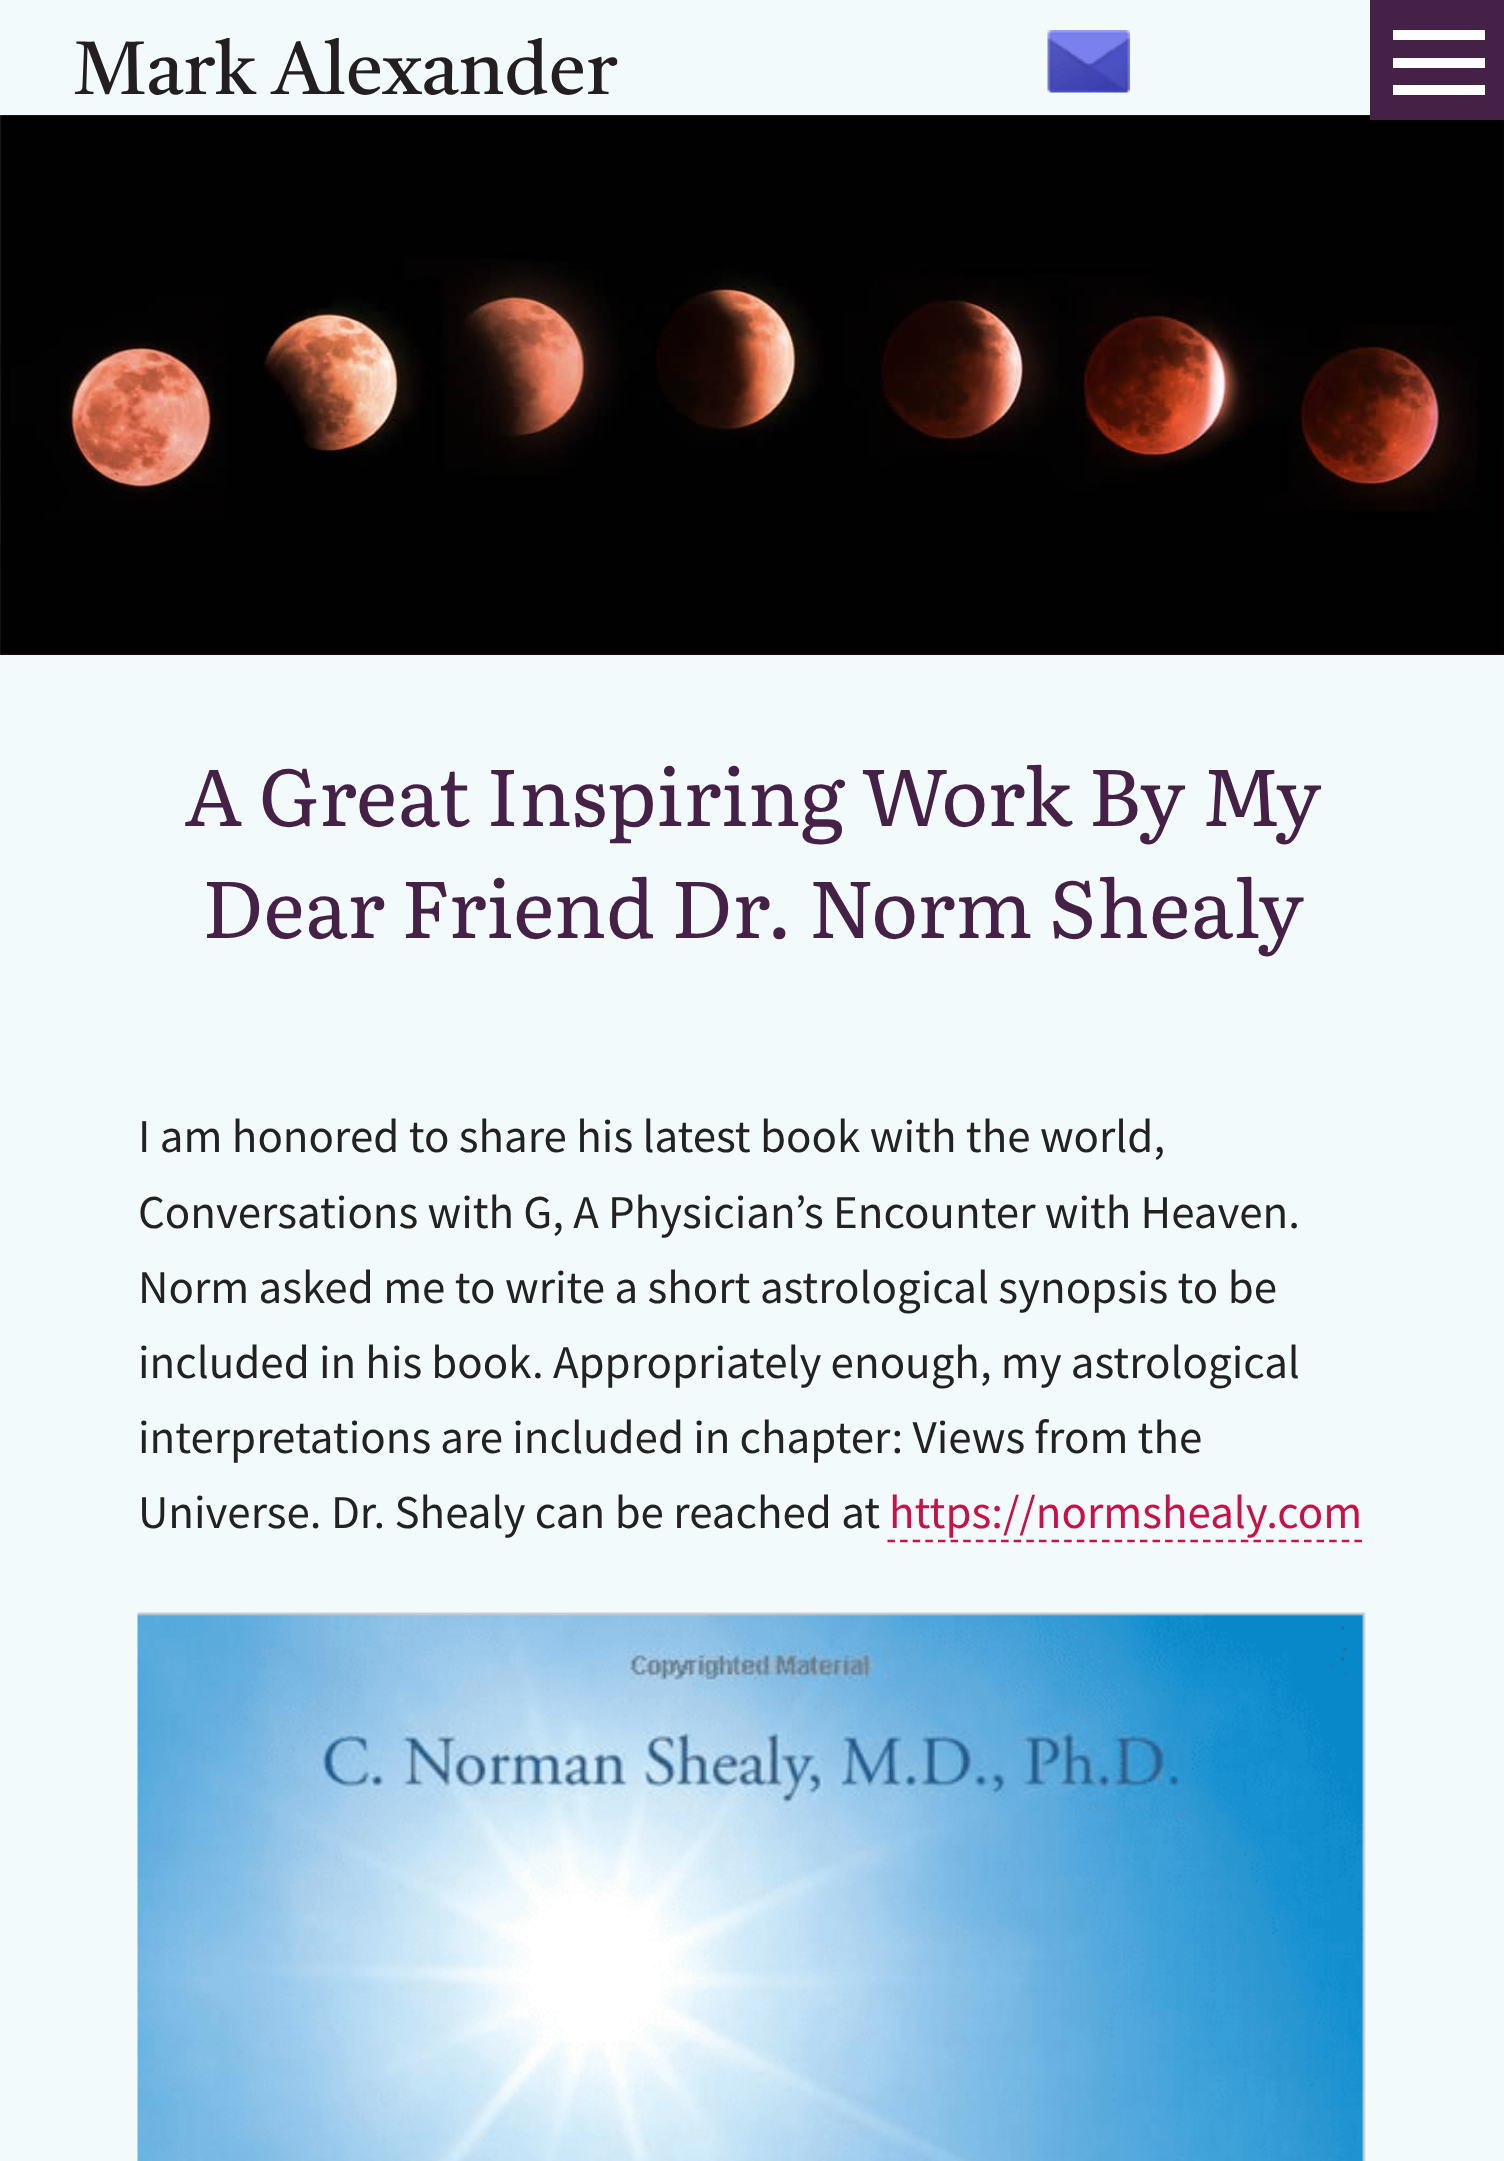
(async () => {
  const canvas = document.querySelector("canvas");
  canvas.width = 1504;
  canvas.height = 2161;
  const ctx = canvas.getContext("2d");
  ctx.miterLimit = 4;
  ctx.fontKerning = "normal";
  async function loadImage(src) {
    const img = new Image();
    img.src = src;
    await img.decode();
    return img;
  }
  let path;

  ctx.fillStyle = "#f3fafb";
  ctx.fillRect(0, 0, 1504, 2161);
  ctx.drawImage(await loadImage("img/1.png"), 75, 38, 543, 57);
  ctx.drawImage(await loadImage("img/2.png"), 1047, 30, 83, 63);
  ctx.drawImage(await loadImage("img/3.png"), 0, 115, 1504, 540);
  for (const [x, y, w, h, color] of [
    [1370, 0, 134, 120, "#462147"],
    [1393, 30, 92, 10, "#ffffff"],
    [1393, 58, 92, 10, "#ffffff"],
    [1393, 85, 92, 10, "#ffffff"],
  ]) {
    ctx.fillStyle = color;
    ctx.fillRect(x, y, w, h);
  }
  path = new Path2D("M887.5 1541H1362.5");
  ctx.strokeStyle = "#c81145";
  ctx.lineWidth = 2.5;
  ctx.setLineDash([7.5, 5.12]);
  ctx.stroke(path);
  ctx.drawImage(await loadImage("img/4.png"), 137, 1612, 1230, 549);
  ctx.font = "80px Literata";
  ctx.fillStyle = "#462147";
  ctx.fillText("A Great Inspiring Work By My", 184, 826);
  ctx.fillText("Dear Friend Dr. Norm Shealy", 202, 938);
  ctx.font = "47px Source Sans Pro";
  ctx.fillStyle = "#222222";
  ctx.fillText("I am honored to share his latest book with the world,", 138, 1152);
  ctx.wordSpacing = "-0.25px";
  ctx.fillText("Conversations with G, A Physician’s Encounter with Heaven.", 138, 1228);
  ctx.wordSpacing = "0px";
  ctx.fillText("Norm asked me to write a short astrological synopsis to be", 138, 1303);
  ctx.wordSpacing = "-0.25px";
  ctx.fillText("included in his book. Appropriately enough, my astrological", 138, 1378);
  ctx.fillText("interpretations are included in chapter: Views from the", 138, 1453);
  ctx.wordSpacing = "0px";
  ctx.fillText("Universe. Dr. Shealy can be reached at", 138, 1528);
  ctx.fillStyle = "#c81145";
  ctx.fillText("https://normshealy.com", 889, 1528);
})();
